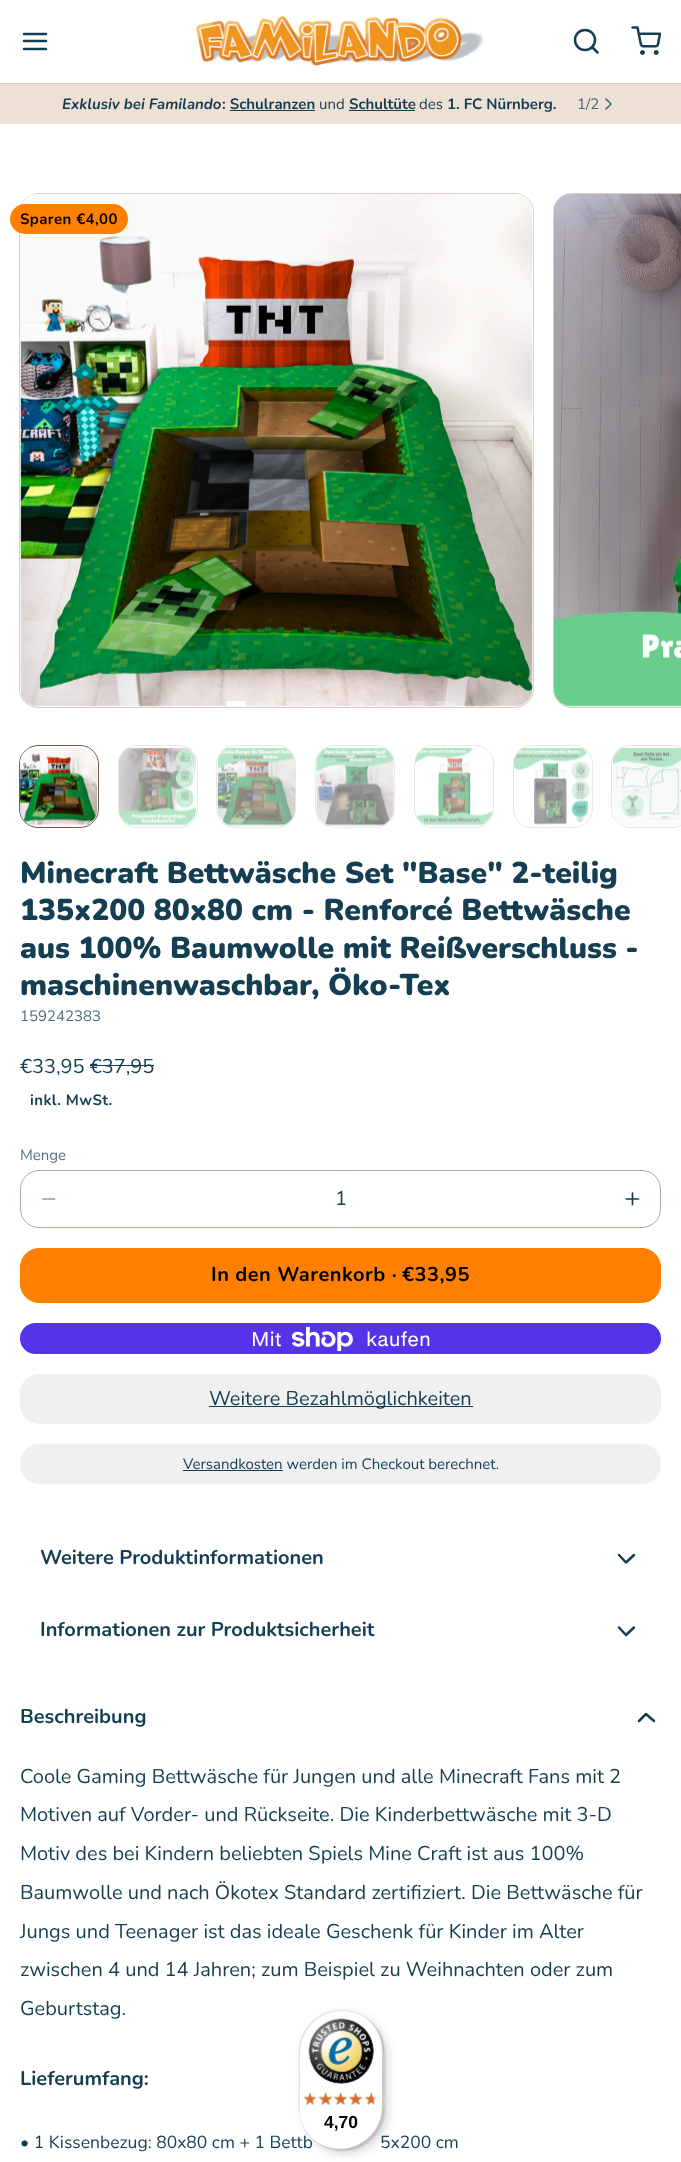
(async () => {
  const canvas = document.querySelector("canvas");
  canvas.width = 681;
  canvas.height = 2162;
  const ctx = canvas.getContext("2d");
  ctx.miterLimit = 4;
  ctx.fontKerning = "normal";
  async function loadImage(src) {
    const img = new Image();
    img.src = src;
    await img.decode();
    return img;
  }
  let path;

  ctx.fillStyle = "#ffffff";
  ctx.fillRect(0, 0, 681, 2162);
  ctx.fillStyle = "#d9cfc6";
  ctx.fillRect(0, 83, 681, 1);
  path = new Path2D("M24 41H46M24 34H46M24 49H46");
  ctx.strokeStyle = "#143e52";
  ctx.lineWidth = 2.5;
  ctx.lineCap = "round";
  ctx.lineJoin = "round";
  ctx.stroke(path);
  ctx.drawImage(await loadImage("img/1.png"), 196, 16, 288, 50);
  ctx.beginPath();
  ctx.arc(585, 40, 10, 0, Math.PI * 2);
  ctx.stroke();
  path = new Path2D("M597.5 52.5L592 47");
  ctx.stroke(path);
  ctx.drawImage(await loadImage("img/2.png"), 631, 26, 30, 29);
  for (const [x, y, w, h, color] of [
    [0, 84, 681, 40, "#ede0d4"],
    [349, 110, 66, 1, "#143e52"],
    [230, 110, 85, 1, "#143e52"],
  ]) {
    ctx.fillStyle = color;
    ctx.fillRect(x, y, w, h);
  }
  path = new Path2D("M606 109L611 104L606 99");
  ctx.strokeStyle = "#4a6773";
  ctx.lineWidth = 1.7;
  ctx.stroke(path);
  ctx.beginPath();
  ctx.roundRect(19.5, 193.5, 514, 514, 18.5);
  ctx.strokeStyle = "#d9cfc6";
  ctx.lineWidth = 1;
  ctx.lineJoin = "miter";
  ctx.stroke();
  ctx.fillStyle = "#ffffff";
  ctx.beginPath();
  ctx.roundRect(20, 194, 513, 512, 18);
  ctx.fill();
  ctx.drawImage(await loadImage("img/3.png"), 20, 194, 513, 513);
  ctx.beginPath();
  ctx.roundRect(553.5, 193.5, 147, 514, 18.5);
  ctx.stroke();
  ctx.drawImage(await loadImage("img/4.png"), 553, 194, 128, 513);
  ctx.fillStyle = "#ff8000";
  ctx.beginPath();
  ctx.roundRect(10, 204, 118, 30, 15);
  ctx.fill();
  ctx.fillStyle = "#ffffff";
  ctx.beginPath();
  ctx.roundRect(226, 701, 20, 5, 2.5);
  ctx.fill();
  ctx.fillStyle = "rgba(255, 255, 255, 0.25)";
  ctx.beginPath();
  ctx.roundRect(256, 701, 20, 5, 2.5);
  ctx.fill();
  ctx.beginPath();
  ctx.roundRect(286, 701, 20, 5, 2.5);
  ctx.fill();
  ctx.beginPath();
  ctx.roundRect(316, 701, 20, 5, 2.5);
  ctx.fill();
  ctx.beginPath();
  ctx.roundRect(346, 701, 20, 5, 2.5);
  ctx.fill();
  ctx.beginPath();
  ctx.roundRect(376, 701, 20, 5, 2.5);
  ctx.fill();
  ctx.beginPath();
  ctx.roundRect(406, 701, 20, 5, 2.5);
  ctx.fill();
  ctx.beginPath();
  ctx.roundRect(436, 701, 20, 5, 2.5);
  ctx.fill();
  ctx.beginPath();
  ctx.roundRect(19.5, 745.5, 79, 82, 18.5);
  ctx.strokeStyle = "#6f5c4a";
  ctx.stroke();
  ctx.drawImage(await loadImage("img/5.png"), 20, 748, 78, 78);
  ctx.beginPath();
  ctx.roundRect(118.5, 745.5, 79, 82, 18.5);
  ctx.strokeStyle = "#ece7e3";
  ctx.stroke();
  ctx.drawImage(await loadImage("img/6.png"), 119, 748, 77, 78);
  ctx.beginPath();
  ctx.roundRect(216.5, 745.5, 79, 82, 18.5);
  ctx.stroke();
  ctx.drawImage(await loadImage("img/7.png"), 217, 748, 78, 78);
  ctx.beginPath();
  ctx.roundRect(315.5, 745.5, 79, 82, 18.5);
  ctx.stroke();
  ctx.drawImage(await loadImage("img/8.png"), 316, 748, 78, 78);
  ctx.beginPath();
  ctx.roundRect(414.5, 745.5, 79, 82, 18.5);
  ctx.stroke();
  ctx.drawImage(await loadImage("img/9.png"), 415, 748, 77, 78);
  ctx.beginPath();
  ctx.roundRect(513.5, 745.5, 79, 82, 18.5);
  ctx.stroke();
  ctx.drawImage(await loadImage("img/10.png"), 514, 748, 76, 77);
  ctx.beginPath();
  ctx.roundRect(611.5, 745.5, 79, 82, 18.5);
  ctx.stroke();
  ctx.drawImage(await loadImage("img/11.png"), 612, 748, 69, 77);
  ctx.fillStyle = "#143e52";
  ctx.fillRect(90, 1065, 64, 1);
  ctx.beginPath();
  ctx.roundRect(20.5, 1170.5, 640, 57, 18.5);
  ctx.strokeStyle = "#baa898";
  ctx.stroke();
  path = new Path2D("M43 1199H54.5");
  ctx.strokeStyle = "#8a9fa9";
  ctx.lineWidth = 1.7;
  ctx.lineJoin = "round";
  ctx.stroke(path);
  path = new Path2D("M632.5 1193V1204.5M626.5 1199H638.5");
  ctx.strokeStyle = "#143e52";
  ctx.stroke(path);
  ctx.fillStyle = "#ff8000";
  ctx.beginPath();
  ctx.roundRect(20.5, 1248.5, 640, 54, 18.5);
  ctx.fill();
  ctx.strokeStyle = "#ff8000";
  ctx.lineWidth = 1;
  ctx.lineJoin = "miter";
  ctx.stroke();
  ctx.fillStyle = "#5433eb";
  ctx.beginPath();
  ctx.roundRect(20, 1323, 641, 31, 15.5);
  ctx.fill();
  ctx.drawImage(await loadImage("img/12.png"), 291, 1326, 62, 25);
  ctx.fillStyle = "#f0f0f0";
  ctx.beginPath();
  ctx.roundRect(20, 1374, 641, 50, 19);
  ctx.fill();
  ctx.fillStyle = "#143e52";
  ctx.fillRect(209, 1406, 264, 1);
  ctx.fillStyle = "#f0f0f0";
  ctx.beginPath();
  ctx.roundRect(20, 1444, 641, 40, 19);
  ctx.fill();
  ctx.fillStyle = "#143e52";
  ctx.fillRect(183, 1470, 100, 1);
  path = new Path2D("M619 1555L626 1562.5L634 1555");
  ctx.strokeStyle = "#143e52";
  ctx.lineWidth = 2.5;
  ctx.lineJoin = "round";
  ctx.stroke(path);
  path = new Path2D("M619 1627.5L626 1635L634 1627.5");
  ctx.stroke(path);
  path = new Path2D("M654 1721L646 1714L639 1721");
  ctx.stroke(path);
  ctx.fillStyle = "rgba(0, 0, 0, 0.15)";
  ctx.filter = "blur(5px)";
  ctx.beginPath();
  ctx.roundRect(303, 2014, 85, 140, 42.5);
  ctx.fill();
  ctx.filter = "none";
  ctx.filter = "blur(1px)";
  ctx.beginPath();
  ctx.roundRect(300, 2011, 85, 140, 42.5);
  ctx.fill();
  ctx.filter = "none";
  ctx.font = "italic bold 15px Nunito";
  ctx.fillStyle = "#143e52";
  ctx.fillText("Exklusiv bei Familando", 62, 109);
  ctx.font = "bold 15px Nunito";
  ctx.fillText(": Schulranzen", 222, 109);
  ctx.font = "15px Nunito";
  ctx.fillText("und", 319, 109);
  ctx.font = "bold 15px Nunito";
  ctx.fillText("Schultüte", 349, 109);
  ctx.font = "15px Nunito";
  ctx.fillText("des", 419, 109);
  ctx.font = "bold 15px Nunito";
  ctx.fillText("1. FC Nürnberg.", 447, 109);
  ctx.font = "15px Nunito";
  ctx.fillStyle = "#4a6773";
  ctx.fillText("1/2", 577, 109);
  ctx.letterSpacing = "0.4px";
  ctx.font = "bold 15px Nunito";
  ctx.fillStyle = "#000000";
  ctx.fillText("Sparen €4,00", 20, 224);
  ctx.letterSpacing = "0px";
  ctx.font = "900 30px Nunito";
  ctx.fillStyle = "#143e52";
  for (const [text, x, y] of [
    ["Minecraft Bettwäsche Set \"Base\" 2-teilig", 20, 883],
    ["135x200 80x80 cm - Renforcé Bettwäsche", 20, 920],
    ["aus 100% Baumwolle mit Reißverschluss -", 20, 958],
    ["maschinenwaschbar, Öko-Tex", 20, 995],
  ]) {
    ctx.fillText(text, x, y);
  }
  ctx.font = "15px Nunito";
  ctx.fillStyle = "#4f6e7d";
  ctx.fillText("159242383", 20, 1021);
  ctx.font = "20px Nunito";
  ctx.fillStyle = "#143e52";
  ctx.fillText("€33,95 €37,95", 20, 1073);
  ctx.letterSpacing = "0.4px";
  ctx.font = "bold 15px Nunito";
  ctx.fillText("inkl. MwSt.", 30, 1105);
  ctx.letterSpacing = "0px";
  ctx.font = "15px Nunito";
  ctx.fillStyle = "#4f6e7d";
  ctx.fillText("Menge", 20, 1160);
  ctx.font = "20px Nunito";
  ctx.fillStyle = "#143e52";
  ctx.fillText("1", 335, 1205);
  ctx.letterSpacing = "0.5px";
  ctx.font = "bold 20px Nunito";
  ctx.fillStyle = "#000000";
  ctx.fillText("In den Warenkorb ·", 211, 1281);
  ctx.fillText("€33,95", 402, 1281);
  ctx.letterSpacing = "0px";
  ctx.font = "20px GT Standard";
  ctx.fillStyle = "#ffffff";
  ctx.fillText("Mit", 251, 1346);
  ctx.fillText("kaufen", 366, 1346);
  ctx.font = "20px Nunito";
  ctx.fillStyle = "#143e52";
  ctx.fillText("Weitere Bezahlmöglichkeiten", 209, 1405);
  ctx.font = "15px Nunito";
  ctx.fillText("Versandkosten werden im Checkout berechnet.", 183, 1469);
  ctx.font = "bold 20px Nunito";
  for (const [text, x, y] of [
    ["Weitere Produktinformationen", 40, 1564],
    ["Informationen zur Produktsicherheit", 40, 1636],
    ["Beschreibung", 20, 1723],
  ]) {
    ctx.fillText(text, x, y);
  }
  ctx.font = "20px Nunito";
  for (const [text, x, y] of [
    ["Coole Gaming Bettwäsche für Jungen und alle Minecraft Fans mit 2", 20, 1783],
    ["Motiven auf Vorder- und Rückseite. Die Kinderbettwäsche mit 3-D", 20, 1821],
    ["Motiv des bei Kindern beliebten Spiels Mine Craft ist aus 100%", 20, 1860],
    ["Baumwolle und nach Ökotex Standard zertifiziert. Die Bettwäsche für", 20, 1899],
    ["Jungs und Teenager ist das ideale Geschenk für Kinder im Alter", 20, 1938],
    ["zwischen 4 und 14 Jahren; zum Beispiel zu Weihnachten oder zum", 20, 1976],
    ["Geburtstag.", 20, 2015],
  ]) {
    ctx.fillText(text, x, y);
  }
  ctx.font = "bold 20px Nunito";
  ctx.fillText("Lieferumfang:", 20, 2085);
  ctx.font = "17.5px Nunito";
  ctx.fillText("• 1 Kissenbezug: 80x80 cm + 1 Bettb", 20, 2148);
  ctx.fillText("5x200 cm", 380, 2148);
  ctx.fillStyle = "#ffffff";
  ctx.beginPath();
  ctx.roundRect(299, 2010, 85, 140, 42.5);
  ctx.fill();
  ctx.fillStyle = "rgba(0, 0, 0, 0.1)";
  path = new Path2D("M342 2011C355 2011 366 2016 374 2025C353 2001 315 2007 302 2036C297 2048 299 2066 299 2080C299 2099 296 2120 310 2136C304 2128 300 2119 300 2109V2054C300 2030 319 2011 342 2011Z");
  ctx.fill(path);
  ctx.fillStyle = "rgba(0, 0, 0, 0.2)";
  path = new Path2D("M311 2138C319 2145 330 2150 342 2150C365 2150 384 2131 384 2108V2052C384 2036 375 2022 361 2015C374 2022 382 2036 382 2051V2106C382 2130 363 2149 340 2149C329 2149 319 2145 311 2138Z");
  ctx.fill(path);
  ctx.fillStyle = "rgba(50, 50, 50, 0.2)";
  path = new Path2D("M313 2139C321 2146 331 2150 342 2150C365 2150 384 2131 384 2108V2052C384 2040 378 2028 369 2020C387 2036 383 2058 383 2080C383 2093 385 2111 380 2123C368 2149 335 2157 313 2139Z");
  ctx.fill(path);
  ctx.fillStyle = "rgba(255, 255, 255, 0.3)";
  path = new Path2D("M311 2137C332 2159 369 2152 381 2124C386 2112 384 2094 384 2080C384 2059 387 2038 371 2022C386 2038 383 2060 383 2080C383 2093 385 2111 380 2123C368 2151 332 2157 311 2137Z");
  ctx.fill(path);
  ctx.drawImage(await loadImage("img/13.png"), 308, 2018, 66, 66);
  ctx.drawImage(await loadImage("img/19.png"), 304, 2092, 12, 13);
  ctx.drawImage(await loadImage("img/14.png"), 303, 2092, 13, 13);
  ctx.drawImage(await loadImage("img/20.png"), 319, 2092, 13, 13);
  ctx.drawImage(await loadImage("img/15.png"), 318, 2092, 15, 13);
  ctx.drawImage(await loadImage("img/21.png"), 334, 2093, 13, 12);
  ctx.drawImage(await loadImage("img/16.png"), 333, 2092, 15, 13);
  ctx.drawImage(await loadImage("img/22.png"), 349, 2092, 13, 13);
  ctx.drawImage(await loadImage("img/17.png"), 348, 2092, 15, 13);
  ctx.drawImage(await loadImage("img/23.png"), 365, 2092, 12, 13);
  ctx.drawImage(await loadImage("img/18.png"), 365, 2092, 9, 13);
  ctx.font = "bold 17.5px Liberation Sans";
  ctx.fillStyle = "#000000";
  ctx.fillText("4,70", 324, 2128);
})();
